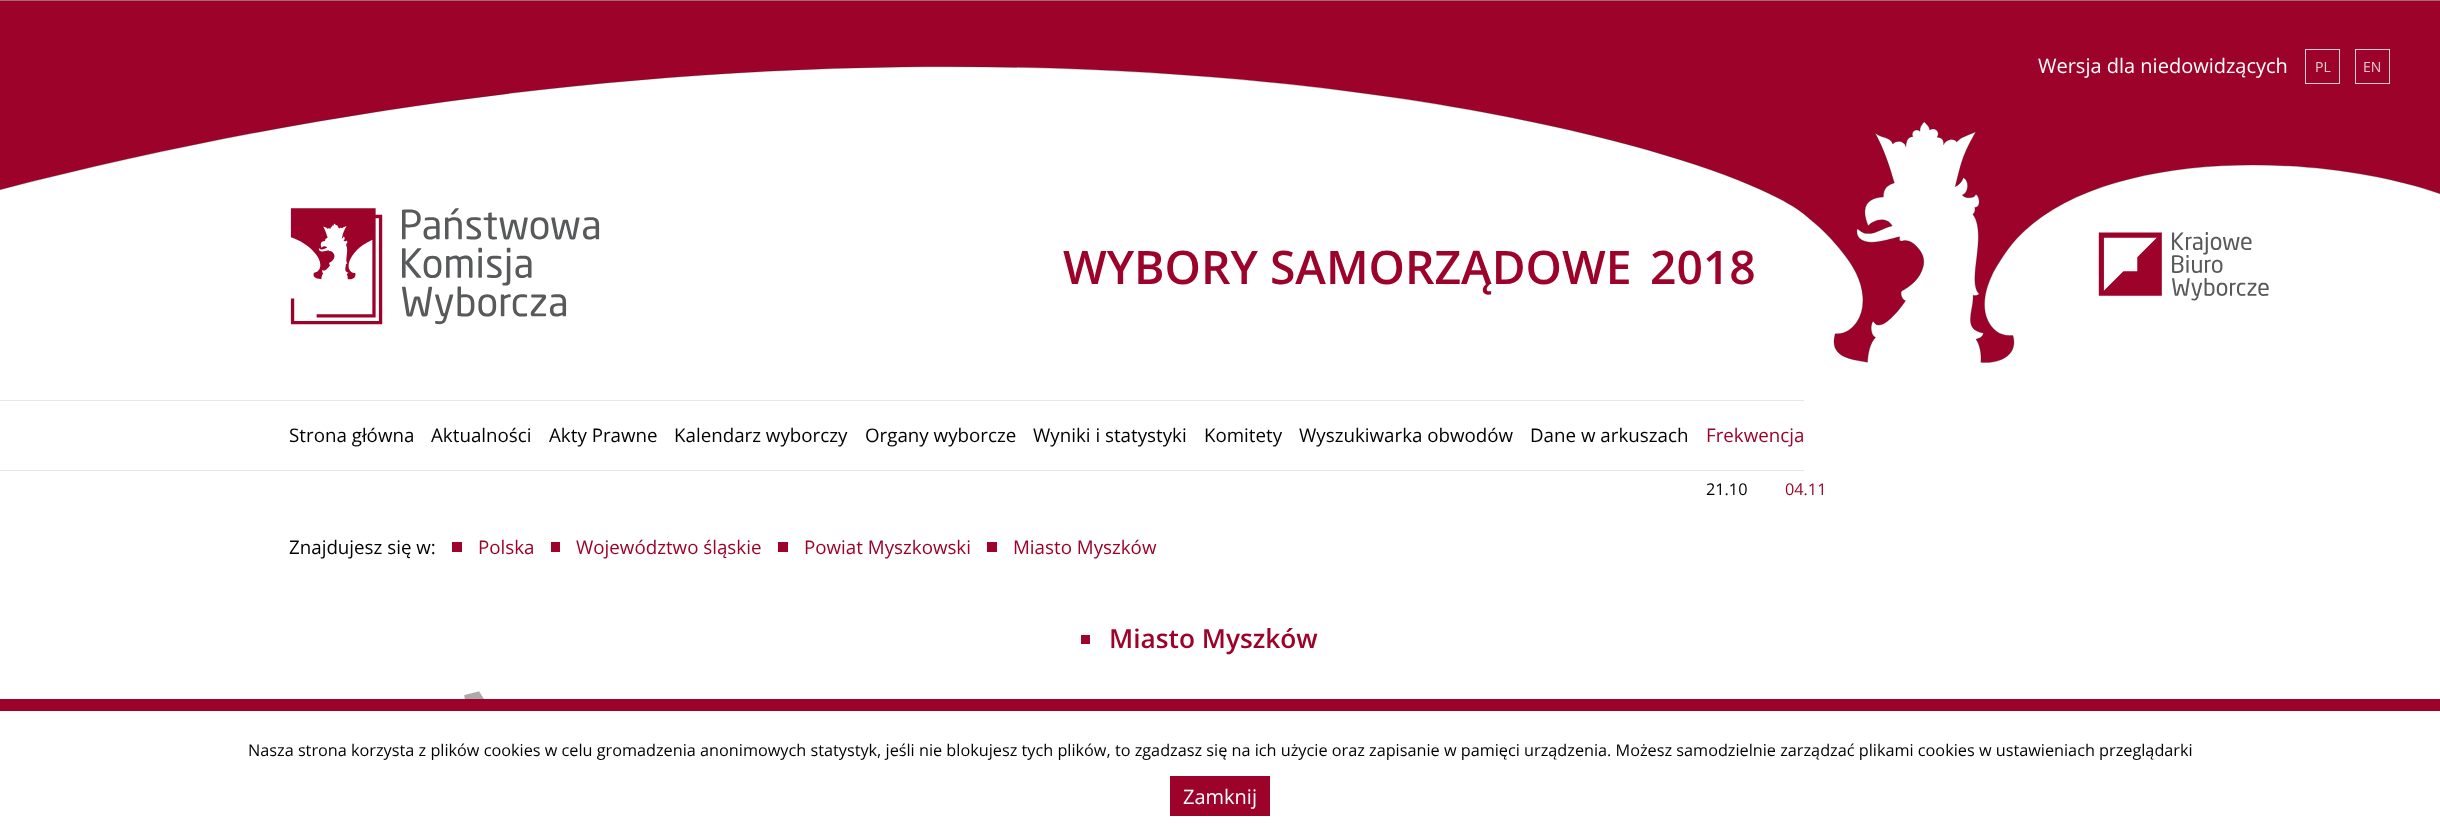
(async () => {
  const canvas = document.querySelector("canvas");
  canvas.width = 2440;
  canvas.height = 836;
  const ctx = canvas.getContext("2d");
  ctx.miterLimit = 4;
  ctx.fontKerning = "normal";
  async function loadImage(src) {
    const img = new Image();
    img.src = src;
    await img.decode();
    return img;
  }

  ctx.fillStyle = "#ffffff";
  ctx.fillRect(0, 0, 2440, 836);
  ctx.drawImage(await loadImage("img/1.png"), 0, 0, 2440, 363);
  ctx.strokeStyle = "#ebcdd4";
  ctx.strokeRect(2305.5, 49.5, 34, 34);
  ctx.strokeRect(2355.5, 49.5, 34, 34);
  ctx.drawImage(await loadImage("img/2.png"), 290, 208, 310, 117);
  ctx.drawImage(await loadImage("img/3.png"), 2098, 232, 171, 69);
  for (const [x, y, w, h, color] of [
    [0, 400, 1804, 1, "#e7e7e7"],
    [0, 470, 1804, 1, "#e7e7e7"],
    [452, 542, 10, 10, "#9e032b"],
    [551, 542, 9, 10, "#9e032b"],
    [778, 542, 10, 10, "#9e032b"],
    [987, 542, 10, 10, "#9e032b"],
    [1081, 635, 9, 9, "#9e032b"],
  ]) {
    ctx.fillStyle = color;
    ctx.fillRect(x, y, w, h);
  }
  ctx.drawImage(await loadImage("img/4.png"), 464, 691, 20, 8);
  ctx.fillStyle = "#9d032a";
  ctx.fillRect(0, 699, 2440, 12);
  ctx.fillRect(1170, 776, 100, 40);
  ctx.font = "20px Open Sans";
  ctx.fillStyle = "#ffffff";
  ctx.fillText("Wersja dla niedowidzących", 2038, 73);
  ctx.font = "14px Open Sans";
  ctx.fillStyle = "#ebcdd4";
  ctx.fillText("PL", 2315, 72);
  ctx.fillText("EN", 2363, 72);
  ctx.font = "600 46.25px Open Sans";
  ctx.fillStyle = "#9d032a";
  ctx.fillText("WYBORY SAMORZĄDOWE", 1063, 284);
  ctx.fillText("2018", 1650, 284);
  ctx.font = "18.75px Open Sans";
  ctx.fillStyle = "#000000";
  for (const [text, x, y] of [
    ["Strona główna", 289, 442],
    ["Aktualności", 431, 442],
    ["Akty Prawne", 549, 442],
    ["Kalendarz wyborczy", 674, 442],
    ["Organy wyborcze", 865, 442],
    ["Wyniki i statystyki", 1033, 442],
    ["Komitety", 1204, 442],
    ["Wyszukiwarka obwodów", 1299, 442],
    ["Dane w arkuszach", 1530, 442],
  ]) {
    ctx.fillText(text, x, y);
  }
  ctx.fillStyle = "#9d032a";
  ctx.fillText("Frekwencja", 1706, 442);
  ctx.font = "16.25px Open Sans";
  ctx.fillStyle = "#000000";
  ctx.fillText("21.10", 1706, 495);
  ctx.fillStyle = "#9d032a";
  ctx.fillText("04.11", 1785, 495);
  ctx.font = "18.75px Open Sans";
  ctx.fillStyle = "#000000";
  ctx.fillText("Znajdujesz się w:", 289, 554);
  ctx.fillStyle = "#9d032a";
  for (const [text, x, y] of [
    ["Polska", 478, 554],
    ["Województwo śląskie", 576, 554],
    ["Powiat Myszkowski", 804, 554],
    ["Miasto Myszków", 1013, 554],
  ]) {
    ctx.fillText(text, x, y);
  }
  ctx.font = "600 26.25px Open Sans";
  ctx.fillText("Miasto Myszków", 1109, 648);
  ctx.font = "16.25px Open Sans";
  ctx.fillStyle = "#000000";
  ctx.fillText("Nasza strona korzysta z plików cookies w celu gromadzenia anonimowych statystyk, jeśli nie blokujesz tych plików, to zgadzasz się na ich użycie oraz zapisanie w pamięci urządzenia. Możesz samodzielnie zarządzać plikami cookies w ustawieniach przeglądarki", 248, 756);
  ctx.font = "20px Open Sans";
  ctx.fillStyle = "#ffffff";
  ctx.fillText("Zamknij", 1183, 804);
})();
